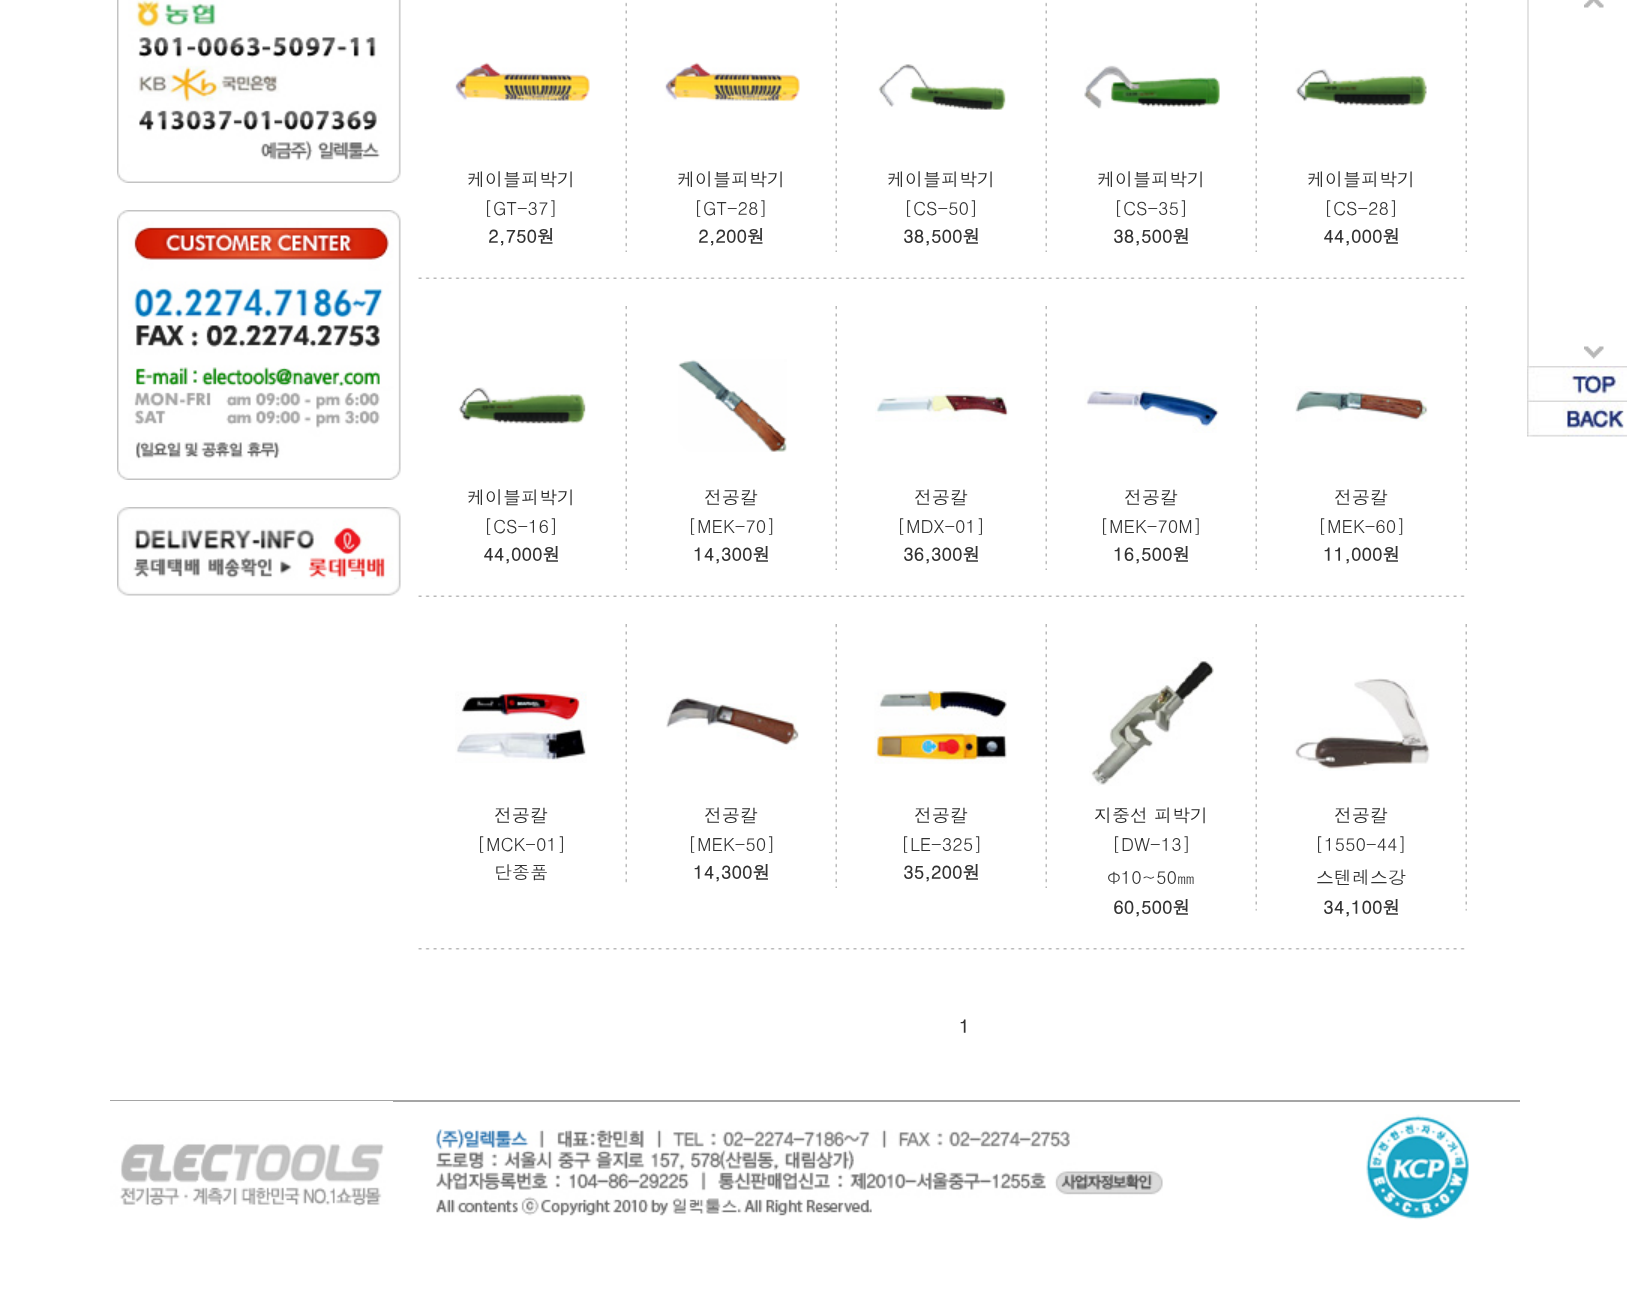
(async () => {
  const canvas = document.querySelector("canvas");
  canvas.width = 1627;
  canvas.height = 1311;
  const ctx = canvas.getContext("2d");
  ctx.miterLimit = 4;
  ctx.fontKerning = "normal";
  async function loadImage(src) {
    const img = new Image();
    img.src = src;
    await img.decode();
    return img;
  }

  ctx.fillStyle = "#ffffff";
  ctx.fillRect(0, 0, 1627, 1311);
  ctx.drawImage(await loadImage("img/1.png"), 117, 0, 284, 183);
  ctx.drawImage(await loadImage("img/2.png"), 117, 210, 284, 270);
  ctx.drawImage(await loadImage("img/3.png"), 117, 507, 284, 89);
  ctx.drawImage(await loadImage("img/4.png"), 418, 277, 207, 2);
  ctx.drawImage(await loadImage("img/5.png"), 625, 2, 2, 250);
  ctx.drawImage(await loadImage("img/6.png"), 454, 62, 136, 40);
  ctx.drawImage(await loadImage("img/7.png"), 628, 277, 207, 2);
  ctx.drawImage(await loadImage("img/5.png"), 835, 2, 2, 250);
  ctx.drawImage(await loadImage("img/8.png"), 664, 62, 136, 40);
  ctx.drawImage(await loadImage("img/7.png"), 838, 277, 207, 2);
  ctx.drawImage(await loadImage("img/5.png"), 1045, 2, 2, 250);
  ctx.drawImage(await loadImage("img/9.png"), 878, 64, 128, 46);
  ctx.drawImage(await loadImage("img/10.png"), 1048, 277, 207, 2);
  ctx.drawImage(await loadImage("img/5.png"), 1255, 2, 2, 250);
  ctx.drawImage(await loadImage("img/11.png"), 1084, 65, 136, 44);
  ctx.drawImage(await loadImage("img/12.png"), 1258, 277, 207, 2);
  ctx.drawImage(await loadImage("img/5.png"), 1465, 2, 2, 250);
  ctx.drawImage(await loadImage("img/13.png"), 1295, 68, 132, 38);
  ctx.drawImage(await loadImage("img/4.png"), 418, 595, 207, 2);
  ctx.drawImage(await loadImage("img/14.png"), 625, 306, 2, 264);
  ctx.drawImage(await loadImage("img/15.png"), 458, 387, 128, 37);
  ctx.drawImage(await loadImage("img/7.png"), 628, 595, 207, 2);
  ctx.drawImage(await loadImage("img/14.png"), 835, 306, 2, 264);
  ctx.drawImage(await loadImage("img/16.png"), 678, 359, 109, 93);
  ctx.drawImage(await loadImage("img/7.png"), 838, 595, 207, 2);
  ctx.drawImage(await loadImage("img/14.png"), 1045, 306, 2, 264);
  ctx.drawImage(await loadImage("img/17.png"), 875, 387, 134, 35);
  ctx.drawImage(await loadImage("img/10.png"), 1048, 595, 207, 2);
  ctx.drawImage(await loadImage("img/14.png"), 1255, 306, 2, 264);
  ctx.drawImage(await loadImage("img/18.png"), 1084, 386, 135, 47);
  ctx.drawImage(await loadImage("img/12.png"), 1258, 595, 207, 2);
  ctx.drawImage(await loadImage("img/14.png"), 1465, 306, 2, 264);
  ctx.drawImage(await loadImage("img/19.png"), 1295, 386, 133, 36);
  ctx.drawImage(await loadImage("img/20.png"), 418, 948, 207, 2);
  ctx.drawImage(await loadImage("img/21.png"), 625, 624, 2, 259);
  ctx.drawImage(await loadImage("img/22.png"), 455, 691, 132, 72);
  ctx.drawImage(await loadImage("img/23.png"), 628, 948, 207, 2);
  ctx.drawImage(await loadImage("img/14.png"), 835, 624, 2, 264);
  ctx.drawImage(await loadImage("img/24.png"), 666, 697, 133, 53);
  ctx.drawImage(await loadImage("img/23.png"), 838, 948, 207, 2);
  ctx.drawImage(await loadImage("img/14.png"), 1045, 624, 2, 264);
  ctx.drawImage(await loadImage("img/25.png"), 874, 689, 133, 75);
  ctx.drawImage(await loadImage("img/26.png"), 1048, 948, 207, 2);
  ctx.drawImage(await loadImage("img/27.png"), 1255, 624, 2, 287);
  ctx.drawImage(await loadImage("img/28.png"), 1089, 657, 125, 129);
  ctx.drawImage(await loadImage("img/29.png"), 1258, 948, 207, 2);
  ctx.drawImage(await loadImage("img/27.png"), 1465, 624, 2, 287);
  ctx.drawImage(await loadImage("img/30.png"), 1294, 678, 136, 93);
  ctx.fillStyle = "#e3e3e3";
  ctx.fillRect(1527, 0, 2, 366);
  ctx.drawImage(await loadImage("img/31.png"), 1584, 0, 20, 8);
  ctx.drawImage(await loadImage("img/32.png"), 1584, 346, 20, 13);
  ctx.drawImage(await loadImage("img/33.png"), 1527, 366, 100, 36);
  ctx.drawImage(await loadImage("img/34.png"), 1527, 402, 100, 35);
  ctx.fillStyle = "#a5a5a5";
  ctx.fillRect(110, 1100, 1410, 2);
  ctx.drawImage(await loadImage("img/35.png"), 110, 1101, 283, 106);
  ctx.drawImage(await loadImage("img/36.png"), 436, 1129, 727, 87);
  ctx.drawImage(await loadImage("img/37.png"), 1366, 1114, 103, 106);
  ctx.font = "18px Dotum";
  ctx.fillStyle = "#262626";
  ctx.fillText("케이블피박기", 467, 186);
  ctx.fillStyle = "#333333";
  ctx.fillText("[GT-37]", 484, 215);
  ctx.font = "bold 18px Dotum";
  ctx.fillText("2,750원", 488, 243);
  ctx.font = "18px Dotum";
  ctx.fillStyle = "#262626";
  ctx.fillText("케이블피박기", 677, 186);
  ctx.fillStyle = "#333333";
  ctx.fillText("[GT-28]", 694, 215);
  ctx.font = "bold 18px Dotum";
  ctx.fillText("2,200원", 698, 243);
  ctx.font = "18px Dotum";
  ctx.fillStyle = "#262626";
  ctx.fillText("케이블피박기", 887, 186);
  ctx.fillStyle = "#333333";
  ctx.fillText("[CS-50]", 904, 215);
  ctx.font = "bold 18px Dotum";
  ctx.fillText("38,500원", 903, 243);
  ctx.font = "18px Dotum";
  ctx.fillStyle = "#262626";
  ctx.fillText("케이블피박기", 1097, 186);
  ctx.fillStyle = "#333333";
  ctx.fillText("[CS-35]", 1114, 215);
  ctx.font = "bold 18px Dotum";
  ctx.fillText("38,500원", 1113, 243);
  ctx.font = "18px Dotum";
  ctx.fillStyle = "#262626";
  ctx.fillText("케이블피박기", 1307, 186);
  ctx.fillStyle = "#333333";
  ctx.fillText("[CS-28]", 1324, 215);
  ctx.font = "bold 18px Dotum";
  ctx.fillText("44,000원", 1323, 243);
  ctx.font = "18px Dotum";
  ctx.fillStyle = "#262626";
  ctx.fillText("케이블피박기", 467, 504);
  ctx.fillStyle = "#333333";
  ctx.fillText("[CS-16]", 484, 533);
  ctx.font = "bold 18px Dotum";
  ctx.fillText("44,000원", 483, 561);
  ctx.font = "18px Dotum";
  ctx.fillStyle = "#262626";
  ctx.fillText("전공칼", 704, 504);
  ctx.fillStyle = "#333333";
  ctx.fillText("[MEK-70]", 688, 533);
  ctx.font = "bold 18px Dotum";
  ctx.fillText("14,300원", 693, 561);
  ctx.font = "18px Dotum";
  ctx.fillStyle = "#262626";
  ctx.fillText("전공칼", 914, 504);
  ctx.fillStyle = "#333333";
  ctx.fillText("[MDX-01]", 897, 533);
  ctx.font = "bold 18px Dotum";
  ctx.fillText("36,300원", 903, 561);
  ctx.font = "18px Dotum";
  ctx.fillStyle = "#262626";
  ctx.fillText("전공칼", 1124, 504);
  ctx.fillStyle = "#333333";
  ctx.fillText("[MEK-70M]", 1100, 533);
  ctx.font = "bold 18px Dotum";
  ctx.fillText("16,500원", 1113, 561);
  ctx.font = "18px Dotum";
  ctx.fillStyle = "#262626";
  ctx.fillText("전공칼", 1334, 504);
  ctx.fillStyle = "#333333";
  ctx.fillText("[MEK-60]", 1318, 533);
  ctx.font = "bold 18px Dotum";
  ctx.fillText("11,000원", 1323, 561);
  ctx.font = "18px Dotum";
  ctx.fillStyle = "#262626";
  ctx.fillText("전공칼", 494, 822);
  ctx.fillStyle = "#333333";
  ctx.fillText("[MCK-01]", 477, 851);
  ctx.fillText("단종품", 494, 879);
  ctx.fillStyle = "#262626";
  ctx.fillText("전공칼", 704, 822);
  ctx.fillStyle = "#333333";
  ctx.fillText("[MEK-50]", 688, 851);
  ctx.font = "bold 18px Dotum";
  ctx.fillText("14,300원", 693, 879);
  ctx.font = "18px Dotum";
  ctx.fillStyle = "#262626";
  ctx.fillText("전공칼", 914, 822);
  ctx.fillStyle = "#333333";
  ctx.fillText("[LE-325]", 901, 851);
  ctx.font = "bold 18px Dotum";
  ctx.fillText("35,200원", 903, 879);
  ctx.font = "18px Dotum";
  ctx.fillStyle = "#262626";
  ctx.fillText("지중선 피박기", 1094, 822);
  ctx.fillStyle = "#333333";
  ctx.fillText("[DW-13]", 1112, 851);
  ctx.fillText("Φ10~50㎜", 1107, 884);
  ctx.font = "bold 18px Dotum";
  ctx.fillText("60,500원", 1113, 914);
  ctx.font = "18px Dotum";
  ctx.fillStyle = "#262626";
  ctx.fillText("전공칼", 1334, 822);
  ctx.fillStyle = "#333333";
  ctx.fillText("[1550-44]", 1315, 851);
  ctx.fillText("스텐레스강", 1316, 884);
  ctx.font = "bold 18px Dotum";
  ctx.fillText("34,100원", 1323, 914);
  ctx.fillText("1", 959, 1033);
})();
